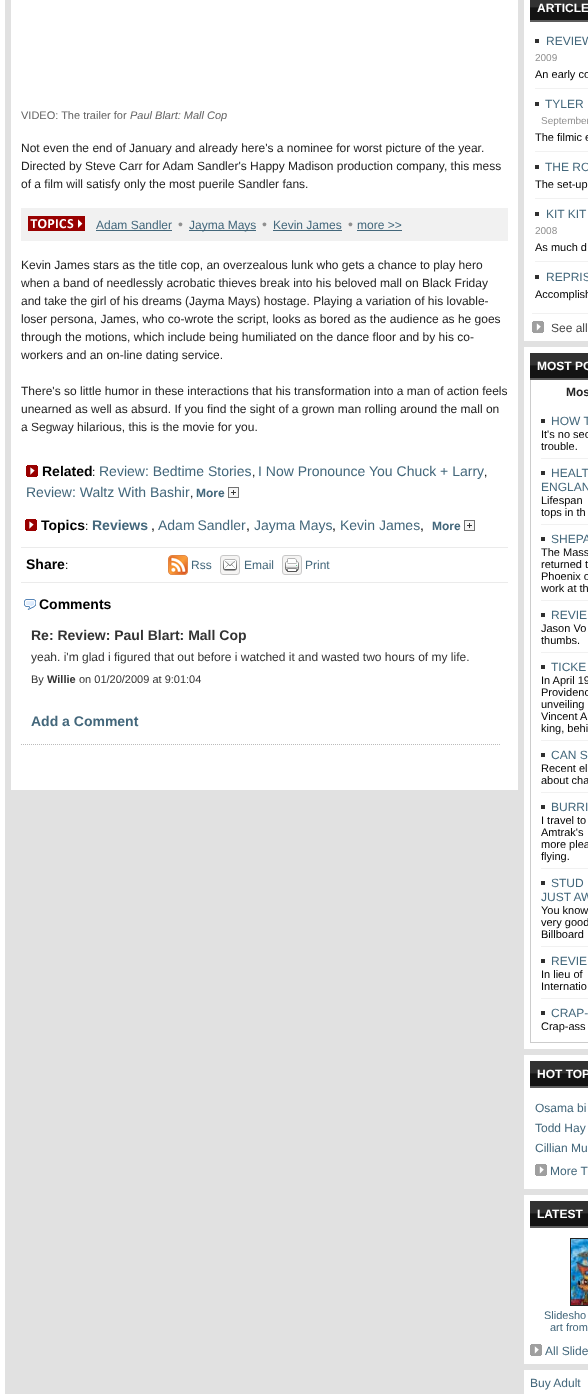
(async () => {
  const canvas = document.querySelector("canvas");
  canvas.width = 588;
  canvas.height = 1394;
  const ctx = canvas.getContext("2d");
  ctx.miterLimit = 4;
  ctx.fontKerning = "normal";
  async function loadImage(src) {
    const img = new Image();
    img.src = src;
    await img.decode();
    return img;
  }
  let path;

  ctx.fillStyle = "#ffffff";
  ctx.fillRect(0, 0, 588, 1394);
  for (const [x, y, w, h, color] of [
    [5, 0, 583, 1394, "#e1e1e1"],
    [11, 0, 507, 790, "#ffffff"],
    [21, 208, 487, 33, "#f1f1f1"],
  ]) {
    ctx.fillStyle = color;
    ctx.fillRect(x, y, w, h);
  }
  ctx.drawImage(await loadImage("img/1.png"), 28, 216, 57, 15);
  for (const [x, y, w, h, color] of [
    [96, 230, 76, 1, "#43677b"],
    [189, 230, 67, 1, "#43677b"],
    [273, 230, 69, 1, "#43677b"],
    [357, 230, 45, 1, "#43677b"],
  ]) {
    ctx.fillStyle = color;
    ctx.fillRect(x, y, w, h);
  }
  ctx.drawImage(await loadImage("img/2.png"), 26, 465, 12, 12);
  ctx.drawImage(await loadImage("img/3.png"), 228, 487, 11, 11);
  ctx.drawImage(await loadImage("img/2.png"), 25, 519, 12, 12);
  ctx.drawImage(await loadImage("img/3.png"), 464, 520, 11, 11);
  ctx.fillStyle = "#ebebeb";
  ctx.fillRect(21, 547, 487, 1);
  ctx.fillRect(21, 582, 487, 1);
  ctx.drawImage(await loadImage("img/4.png"), 168, 555, 20, 20);
  ctx.drawImage(await loadImage("img/5.png"), 220, 555, 20, 20);
  ctx.drawImage(await loadImage("img/6.png"), 282, 555, 20, 20);
  ctx.drawImage(await loadImage("img/7.png"), 24, 599, 12, 11);
  path = new Path2D("M21 744.5H501");
  ctx.strokeStyle = "#bbbbbb";
  ctx.setLineDash([1, 1]);
  ctx.stroke(path);
  ctx.fillStyle = "#ffffff";
  ctx.fillRect(524, 0, 64, 341);
  ctx.drawImage(await loadImage("img/8.png"), 530, 0, 58, 20);
  for (const [x, y, w, h, color] of [
    [530, 20, 58, 2, "#5c5c5c"],
    [535, 39, 4, 4, "#303030"],
    [535, 88, 53, 1, "#f1f1f1"],
    [535, 102, 4, 4, "#303030"],
    [535, 151, 53, 1, "#f1f1f1"],
    [535, 165, 4, 4, "#303030"],
    [535, 198, 53, 1, "#f1f1f1"],
    [535, 212, 4, 4, "#303030"],
    [535, 261, 53, 1, "#f1f1f1"],
    [535, 275, 4, 4, "#303030"],
    [532, 313, 56, 1, "#f1f1f1"],
  ]) {
    ctx.fillStyle = color;
    ctx.fillRect(x, y, w, h);
  }
  ctx.drawImage(await loadImage("img/9.png"), 532, 321, 12, 12);
  ctx.fillStyle = "#ffffff";
  ctx.fillRect(524, 347, 64, 702);
  ctx.drawImage(await loadImage("img/10.png"), 530, 353, 58, 25);
  for (const [x, y, w, h, color] of [
    [530, 378, 58, 2, "#5c5c5c"],
    [530, 380, 1, 24, "#cccccc"],
    [530, 1042, 58, 1, "#cccccc"],
    [530, 404, 1, 639, "#cccccc"],
    [541, 419, 4, 4, "#303030"],
    [541, 458, 47, 1, "#f1f1f1"],
    [541, 471, 4, 4, "#303030"],
    [541, 524, 47, 1, "#f1f1f1"],
    [541, 537, 4, 4, "#303030"],
    [541, 600, 47, 1, "#f1f1f1"],
    [541, 613, 4, 4, "#303030"],
    [541, 652, 47, 1, "#f1f1f1"],
    [541, 665, 4, 4, "#303030"],
    [541, 740, 47, 1, "#f1f1f1"],
    [541, 753, 4, 4, "#303030"],
    [541, 792, 47, 1, "#f1f1f1"],
    [541, 805, 4, 4, "#303030"],
    [541, 868, 47, 1, "#f1f1f1"],
    [541, 881, 4, 4, "#303030"],
    [541, 946, 47, 1, "#f1f1f1"],
    [541, 959, 4, 4, "#303030"],
    [541, 998, 47, 1, "#f1f1f1"],
    [541, 1011, 4, 4, "#303030"],
    [524, 1055, 64, 134, "#ffffff"],
  ]) {
    ctx.fillStyle = color;
    ctx.fillRect(x, y, w, h);
  }
  ctx.drawImage(await loadImage("img/10.png"), 530, 1061, 58, 25);
  ctx.fillStyle = "#5c5c5c";
  ctx.fillRect(530, 1086, 58, 2);
  ctx.drawImage(await loadImage("img/9.png"), 535, 1164, 12, 12);
  ctx.fillStyle = "#ffffff";
  ctx.fillRect(524, 1195, 64, 169);
  ctx.drawImage(await loadImage("img/10.png"), 530, 1201, 58, 25);
  ctx.fillStyle = "#5c5c5c";
  ctx.fillRect(530, 1226, 58, 2);
  ctx.strokeStyle = "#232323";
  ctx.setLineDash([]);
  ctx.strokeRect(570.5, 1238.5, 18, 67);
  ctx.drawImage(await loadImage("img/11.png"), 571, 1239, 17, 66);
  ctx.drawImage(await loadImage("img/9.png"), 530, 1344, 12, 12);
  ctx.fillStyle = "#ffffff";
  ctx.fillRect(524, 1370, 64, 24);
  ctx.font = "11px Liberation Sans";
  ctx.fillStyle = "#636363";
  ctx.fillText("VIDEO: The trailer for", 21, 119);
  ctx.font = "italic 11px Liberation Sans";
  ctx.fillText("Paul Blart: Mall Cop", 130, 119);
  ctx.font = "12px Liberation Sans";
  ctx.fillStyle = "#232323";
  for (const [text, x, y] of [
    ["Not even the end of January and already here's a nominee for worst picture of the year.", 21, 152],
    ["Directed by Steve Carr for Adam Sandler's Happy Madison production company, this mess", 21, 170],
    ["of a film will satisfy only the most puerile Sandler fans.", 21, 188],
  ]) {
    ctx.fillText(text, x, y);
  }
  ctx.fillStyle = "#43677b";
  ctx.fillText("Adam Sandler", 96, 229);
  ctx.font = "14px Liberation Sans";
  ctx.fillStyle = "#909090";
  ctx.fillText("•", 178, 229);
  ctx.font = "12px Liberation Sans";
  ctx.fillStyle = "#43677b";
  ctx.fillText("Jayma Mays", 189, 229);
  ctx.font = "14px Liberation Sans";
  ctx.fillStyle = "#909090";
  ctx.fillText("•", 262, 229);
  ctx.font = "12px Liberation Sans";
  ctx.fillStyle = "#43677b";
  ctx.fillText("Kevin James", 273, 229);
  ctx.font = "14px Liberation Sans";
  ctx.fillStyle = "#909090";
  ctx.fillText("•", 348, 229);
  ctx.font = "12px Liberation Sans";
  ctx.fillStyle = "#43677b";
  ctx.fillText("more >>", 357, 229);
  ctx.fillStyle = "#232323";
  for (const [text, x, y] of [
    ["Kevin James stars as the title cop, an overzealous lunk who gets a chance to play hero", 21, 269],
    ["when a band of needlessly acrobatic thieves break into his beloved mall on Black Friday", 21, 287],
    ["and take the girl of his dreams (Jayma Mays) hostage. Playing a variation of his lovable-", 21, 305],
    ["loser persona, James, who co-wrote the script, looks as bored as the audience as he goes", 21, 323],
    ["through the motions, which include being humiliated on the dance floor and by his co-", 21, 341],
    ["workers and an on-line dating service.", 21, 359],
    ["There's so little humor in these interactions that his transformation into a man of action feels", 21, 395],
    ["unearned as well as absurd. If you find the sight of a grown man rolling around the mall on", 21, 413],
    ["a Segway hilarious, this is the movie for you.", 21, 431],
  ]) {
    ctx.fillText(text, x, y);
  }
  ctx.font = "bold 14px Liberation Sans";
  ctx.fillStyle = "#000000";
  ctx.fillText("Related", 42, 476);
  ctx.font = "12px Liberation Sans";
  ctx.fillText(":", 92, 476);
  ctx.font = "14px Liberation Sans";
  ctx.fillStyle = "#43677b";
  ctx.fillText("Review: Bedtime Stories", 99, 476);
  ctx.font = "12px Liberation Sans";
  ctx.fillStyle = "#000000";
  ctx.fillText(",", 252, 476);
  ctx.font = "14px Liberation Sans";
  ctx.fillStyle = "#43677b";
  ctx.fillText("I Now Pronounce You Chuck + Larry", 258, 476);
  ctx.font = "12px Liberation Sans";
  ctx.fillStyle = "#000000";
  ctx.fillText(",", 484, 476);
  ctx.font = "14px Liberation Sans";
  ctx.fillStyle = "#43677b";
  ctx.fillText("Review: Waltz With Bashir", 26, 497);
  ctx.font = "12px Liberation Sans";
  ctx.fillStyle = "#000000";
  ctx.fillText(",", 190, 497);
  ctx.font = "bold 12px Liberation Sans";
  ctx.fillStyle = "#43677b";
  ctx.fillText("More", 196, 497);
  ctx.font = "bold 14px Liberation Sans";
  ctx.fillStyle = "#000000";
  ctx.fillText("Topics", 41, 530);
  ctx.font = "12px Liberation Sans";
  ctx.fillText(":", 85, 530);
  ctx.font = "bold 14px Liberation Sans";
  ctx.fillStyle = "#43677b";
  ctx.fillText("Reviews", 92, 530);
  ctx.font = "14px Liberation Sans";
  ctx.fillStyle = "#000000";
  ctx.fillText(",", 151, 530);
  ctx.wordSpacing = "-1px";
  ctx.fillStyle = "#43677b";
  ctx.fillText("Adam Sandler", 158, 530);
  ctx.wordSpacing = "0px";
  ctx.fillStyle = "#000000";
  ctx.fillText(",", 246, 530);
  ctx.fillStyle = "#43677b";
  ctx.fillText("Jayma Mays", 254, 530);
  ctx.fillStyle = "#000000";
  ctx.fillText(",", 332, 530);
  ctx.fillStyle = "#43677b";
  ctx.fillText("Kevin James", 340, 530);
  ctx.fillStyle = "#000000";
  ctx.fillText(",", 420, 530);
  ctx.font = "bold 12px Liberation Sans";
  ctx.fillStyle = "#43677b";
  ctx.fillText("More", 432, 530);
  ctx.font = "bold 14px Liberation Sans";
  ctx.fillStyle = "#000000";
  ctx.fillText("Share", 26, 569);
  ctx.font = "12px Liberation Sans";
  ctx.fillText(":", 65, 569);
  ctx.fillStyle = "#43677b";
  for (const [text, x, y] of [
    ["Rss", 191, 569],
    ["Email", 244, 569],
    ["Print", 305, 569],
  ]) {
    ctx.fillText(text, x, y);
  }
  ctx.font = "bold 14px Liberation Sans";
  ctx.fillStyle = "#000000";
  ctx.fillText("Comments", 39, 609);
  ctx.fillStyle = "#333333";
  ctx.fillText("Re: Review: Paul Blart: Mall Cop", 31, 640);
  ctx.font = "12px Liberation Sans";
  ctx.fillText("yeah. i'm glad i figured that out before i watched it and wasted two hours of my life.", 31, 661);
  ctx.font = "11px Liberation Sans";
  ctx.fillText("By", 31, 683);
  ctx.font = "bold 11px Liberation Sans";
  ctx.fillText("Willie", 47, 683);
  ctx.font = "11px Liberation Sans";
  ctx.fillText("on 01/20/2009 at 9:01:04", 79, 683);
  ctx.font = "bold 14px Liberation Sans";
  ctx.fillStyle = "#43677b";
  ctx.fillText("Add a Comment", 31, 726);
  ctx.font = "bold 12px Liberation Sans";
  ctx.fillStyle = "#ffffff";
  ctx.fillText("ARTICLE", 537, 12);
  ctx.font = "12px Liberation Sans";
  ctx.fillStyle = "#43677b";
  ctx.fillText("REVIEW", 546, 45);
  ctx.font = "10px Liberation Sans";
  ctx.fillStyle = "#909090";
  ctx.fillText("2009", 535, 61);
  ctx.font = "11px Liberation Sans";
  ctx.fillStyle = "#000000";
  ctx.fillText("An early co", 535, 78);
  ctx.font = "12px Liberation Sans";
  ctx.fillStyle = "#43677b";
  ctx.fillText("TYLER", 545, 108);
  ctx.font = "10px Liberation Sans";
  ctx.fillStyle = "#909090";
  ctx.fillText("September", 541, 124);
  ctx.font = "11px Liberation Sans";
  ctx.fillStyle = "#000000";
  ctx.fillText("The filmic e", 535, 141);
  ctx.font = "12px Liberation Sans";
  ctx.fillStyle = "#43677b";
  ctx.fillText("THE RO", 545, 171);
  ctx.font = "11px Liberation Sans";
  ctx.fillStyle = "#000000";
  ctx.fillText("The set-up", 535, 188);
  ctx.font = "12px Liberation Sans";
  ctx.fillStyle = "#43677b";
  ctx.fillText("KIT KIT", 546, 218);
  ctx.font = "10px Liberation Sans";
  ctx.fillStyle = "#909090";
  ctx.fillText("2008", 535, 234);
  ctx.font = "11px Liberation Sans";
  ctx.fillStyle = "#000000";
  ctx.fillText("As much d", 535, 251);
  ctx.font = "12px Liberation Sans";
  ctx.fillStyle = "#43677b";
  ctx.fillText("REPRIS", 546, 281);
  ctx.font = "11px Liberation Sans";
  ctx.fillStyle = "#000000";
  ctx.fillText("Accomplish", 535, 298);
  ctx.font = "12px Liberation Sans";
  ctx.fillStyle = "#444444";
  ctx.fillText("See all", 551, 332);
  ctx.font = "bold 12px Liberation Sans";
  ctx.fillStyle = "#ffffff";
  ctx.fillText("MOST PO", 537, 370);
  ctx.fillStyle = "#232323";
  ctx.fillText("Mos", 566, 396);
  ctx.font = "12px Liberation Sans";
  ctx.fillStyle = "#43677b";
  ctx.fillText("HOW T", 551, 425);
  ctx.font = "11px Liberation Sans";
  ctx.fillStyle = "#000000";
  ctx.fillText("It's no sec", 541, 438);
  ctx.fillText("trouble.", 541, 450);
  ctx.font = "12px Liberation Sans";
  ctx.fillStyle = "#43677b";
  ctx.fillText("HEALT", 551, 477);
  ctx.fillText("ENGLAN", 541, 491);
  ctx.font = "11px Liberation Sans";
  ctx.fillStyle = "#000000";
  ctx.fillText("Lifespan", 541, 504);
  ctx.fillText("tops in th", 541, 516);
  ctx.font = "12px Liberation Sans";
  ctx.fillStyle = "#43677b";
  ctx.fillText("SHEPA", 551, 543);
  ctx.font = "11px Liberation Sans";
  ctx.fillStyle = "#000000";
  for (const [text, x, y] of [
    ["The Mass", 541, 556],
    ["returned t", 541, 568],
    ["Phoenix o", 541, 580],
    ["work at th", 541, 592],
  ]) {
    ctx.fillText(text, x, y);
  }
  ctx.font = "12px Liberation Sans";
  ctx.fillStyle = "#43677b";
  ctx.fillText("REVIE", 551, 619);
  ctx.font = "11px Liberation Sans";
  ctx.fillStyle = "#000000";
  ctx.fillText("Jason Vo", 541, 632);
  ctx.fillText("thumbs.", 541, 644);
  ctx.font = "12px Liberation Sans";
  ctx.fillStyle = "#43677b";
  ctx.fillText("TICKE", 551, 671);
  ctx.font = "11px Liberation Sans";
  ctx.fillStyle = "#000000";
  for (const [text, x, y] of [
    ["In April 19", 541, 684],
    ["Providenc", 541, 696],
    ["unveiling", 541, 708],
    ["Vincent A", 541, 720],
    ["king, behi", 541, 732],
  ]) {
    ctx.fillText(text, x, y);
  }
  ctx.font = "12px Liberation Sans";
  ctx.fillStyle = "#43677b";
  ctx.fillText("CAN S", 551, 759);
  ctx.font = "11px Liberation Sans";
  ctx.fillStyle = "#000000";
  ctx.fillText("Recent el", 541, 772);
  ctx.fillText("about cha", 541, 784);
  ctx.font = "12px Liberation Sans";
  ctx.fillStyle = "#43677b";
  ctx.fillText("BURRI", 551, 811);
  ctx.font = "11px Liberation Sans";
  ctx.fillStyle = "#000000";
  for (const [text, x, y] of [
    ["I travel to", 541, 824],
    ["Amtrak's", 541, 836],
    ["more plea", 541, 848],
    ["flying.", 541, 860],
  ]) {
    ctx.fillText(text, x, y);
  }
  ctx.font = "12px Liberation Sans";
  ctx.fillStyle = "#43677b";
  ctx.fillText("STUD", 551, 887);
  ctx.fillText("JUST AW", 541, 901);
  ctx.font = "11px Liberation Sans";
  ctx.fillStyle = "#000000";
  for (const [text, x, y] of [
    ["You know", 541, 914],
    ["very good", 541, 926],
    ["Billboard", 541, 938],
  ]) {
    ctx.fillText(text, x, y);
  }
  ctx.font = "12px Liberation Sans";
  ctx.fillStyle = "#43677b";
  ctx.fillText("REVIE", 551, 965);
  ctx.font = "11px Liberation Sans";
  ctx.fillStyle = "#000000";
  ctx.fillText("In lieu of", 541, 978);
  ctx.fillText("Internatio", 541, 990);
  ctx.font = "12px Liberation Sans";
  ctx.fillStyle = "#43677b";
  ctx.fillText("CRAP-", 551, 1017);
  ctx.font = "11px Liberation Sans";
  ctx.fillStyle = "#000000";
  ctx.fillText("Crap-ass", 541, 1030);
  ctx.font = "bold 12px Liberation Sans";
  ctx.fillStyle = "#ffffff";
  ctx.fillText("HOT TOP", 537, 1078);
  ctx.font = "12px Liberation Sans";
  ctx.fillStyle = "#43677b";
  for (const [text, x, y] of [
    ["Osama bi", 535, 1112],
    ["Todd Hay", 535, 1132],
    ["Cillian Mu", 535, 1152],
    ["More T", 550, 1175],
  ]) {
    ctx.fillText(text, x, y);
  }
  ctx.font = "bold 12px Liberation Sans";
  ctx.fillStyle = "#ffffff";
  ctx.fillText("LATEST", 537, 1218);
  ctx.font = "11px Liberation Sans";
  ctx.fillStyle = "#43677b";
  ctx.fillText("Slidesho", 544, 1319);
  ctx.fillText("art from", 550, 1331);
  ctx.font = "12px Liberation Sans";
  ctx.fillText("All Slide", 545, 1355);
  ctx.fillText("Buy Adult", 530, 1387);
})();
